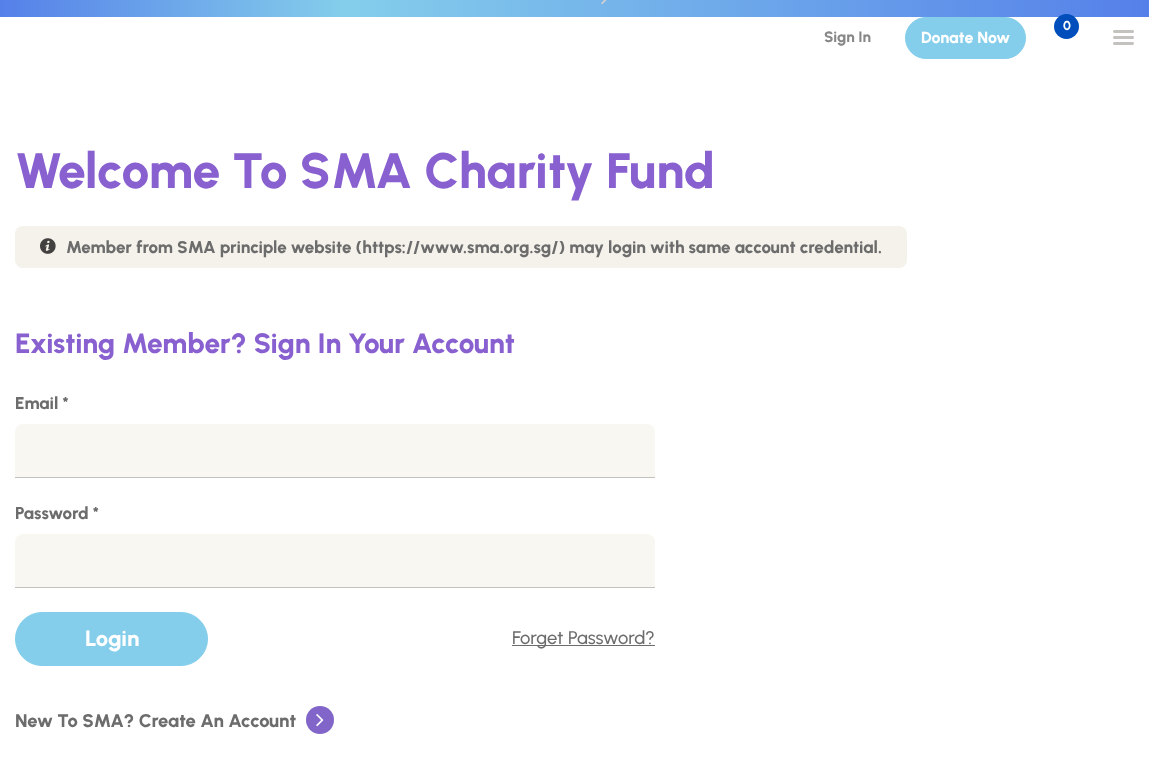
(async () => {
  const canvas = document.querySelector("canvas");
  canvas.width = 1149;
  canvas.height = 764;
  const ctx = canvas.getContext("2d");
  ctx.miterLimit = 4;
  ctx.fontKerning = "normal";
  async function loadImage(src) {
    const img = new Image();
    img.src = src;
    await img.decode();
    return img;
  }
  let gradient;

  ctx.fillStyle = "#ffffff";
  ctx.fillRect(0, 0, 1149, 764);
  gradient = ctx.createLinearGradient(0, -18, 1149, -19);
  gradient.addColorStop(0, "#5580e9");
  gradient.addColorStop(0.3, "#84ceeb");
  gradient.addColorStop(1, "#5580e9");
  ctx.fillStyle = gradient;
  ctx.fillRect(0, 0, 1149, 17);
  ctx.drawImage(await loadImage("img/1.png"), 601, 0, 6, 5);
  ctx.fillStyle = "#004ebc";
  ctx.beginPath();
  ctx.arc(1066.5, 26.5, 12.5, 0, Math.PI * 2);
  ctx.fill();
  ctx.fillStyle = "#84ceeb";
  ctx.beginPath();
  ctx.roundRect(905.5, 17.5, 120, 41, 20.5);
  ctx.fill();
  ctx.strokeStyle = "#84ceeb";
  ctx.stroke();
  ctx.drawImage(await loadImage("img/2.png"), 1113, 30, 21, 15);
  ctx.fillStyle = "#f4f2eb";
  ctx.beginPath();
  ctx.roundRect(15, 226, 892, 42, 8);
  ctx.fill();
  ctx.drawImage(await loadImage("img/3.png"), 40, 238, 16, 16);
  ctx.fillStyle = "#f8f7f2";
  ctx.beginPath();
  ctx.roundRect(15, 424, 640, 54, [8, 8, 0, 0]);
  ctx.fill();
  ctx.fillStyle = "#c3c2be";
  ctx.fillRect(15, 477, 640, 1);
  ctx.fillStyle = "#f8f7f2";
  ctx.beginPath();
  ctx.roundRect(15, 534, 640, 54, [8, 8, 0, 0]);
  ctx.fill();
  ctx.fillStyle = "#c3c2be";
  ctx.fillRect(15, 587, 640, 1);
  ctx.fillStyle = "#84ceeb";
  ctx.beginPath();
  ctx.roundRect(15.5, 612.5, 192, 53, 26.5);
  ctx.fill();
  ctx.stroke();
  ctx.fillStyle = "#6c6c6c";
  ctx.fillRect(512, 645, 143, 1);
  ctx.fillStyle = "#8165c9";
  ctx.beginPath();
  ctx.arc(320, 720, 14, 0, Math.PI * 2);
  ctx.fill();
  ctx.drawImage(await loadImage("img/4.png"), 316, 714, 8, 13);
  ctx.font = "800 13px Urbanist";
  ctx.fillStyle = "#ffffff";
  ctx.fillText("0", 1063, 30);
  ctx.font = "800 15px Urbanist";
  ctx.fillStyle = "#878787";
  ctx.fillText("Sign In", 824, 42);
  ctx.font = "800 16px Urbanist";
  ctx.fillStyle = "#ffffff";
  ctx.fillText("Donate Now", 921, 43);
  ctx.font = "800 49.75px Urbanist";
  ctx.fillStyle = "#8860cf";
  ctx.fillText("Welcome To SMA Charity Fund", 15, 188);
  ctx.font = "800 17px Urbanist";
  ctx.fillStyle = "#6c6c6c";
  ctx.fillText("Member from SMA principle website (https://www.sma.org.sg/) may login with same account credential.", 66, 253);
  ctx.font = "800 28px Urbanist";
  ctx.fillStyle = "#8860cf";
  ctx.fillText("Existing Member? Sign In Your Account", 15, 353);
  ctx.font = "800 17px Urbanist";
  ctx.fillStyle = "#6c6c6c";
  ctx.fillText("Email *", 15, 409);
  ctx.fillText("Password *", 15, 519);
  ctx.font = "800 22px Urbanist";
  ctx.fillStyle = "#ffffff";
  ctx.fillText("Login", 85, 646);
  ctx.font = "500 18.4px Urbanist";
  ctx.fillStyle = "#6c6c6c";
  ctx.fillText("Forget Password?", 512, 644);
  ctx.font = "800 18.4px Urbanist";
  ctx.fillText("New To SMA? Create An Account", 15, 727);
})();
